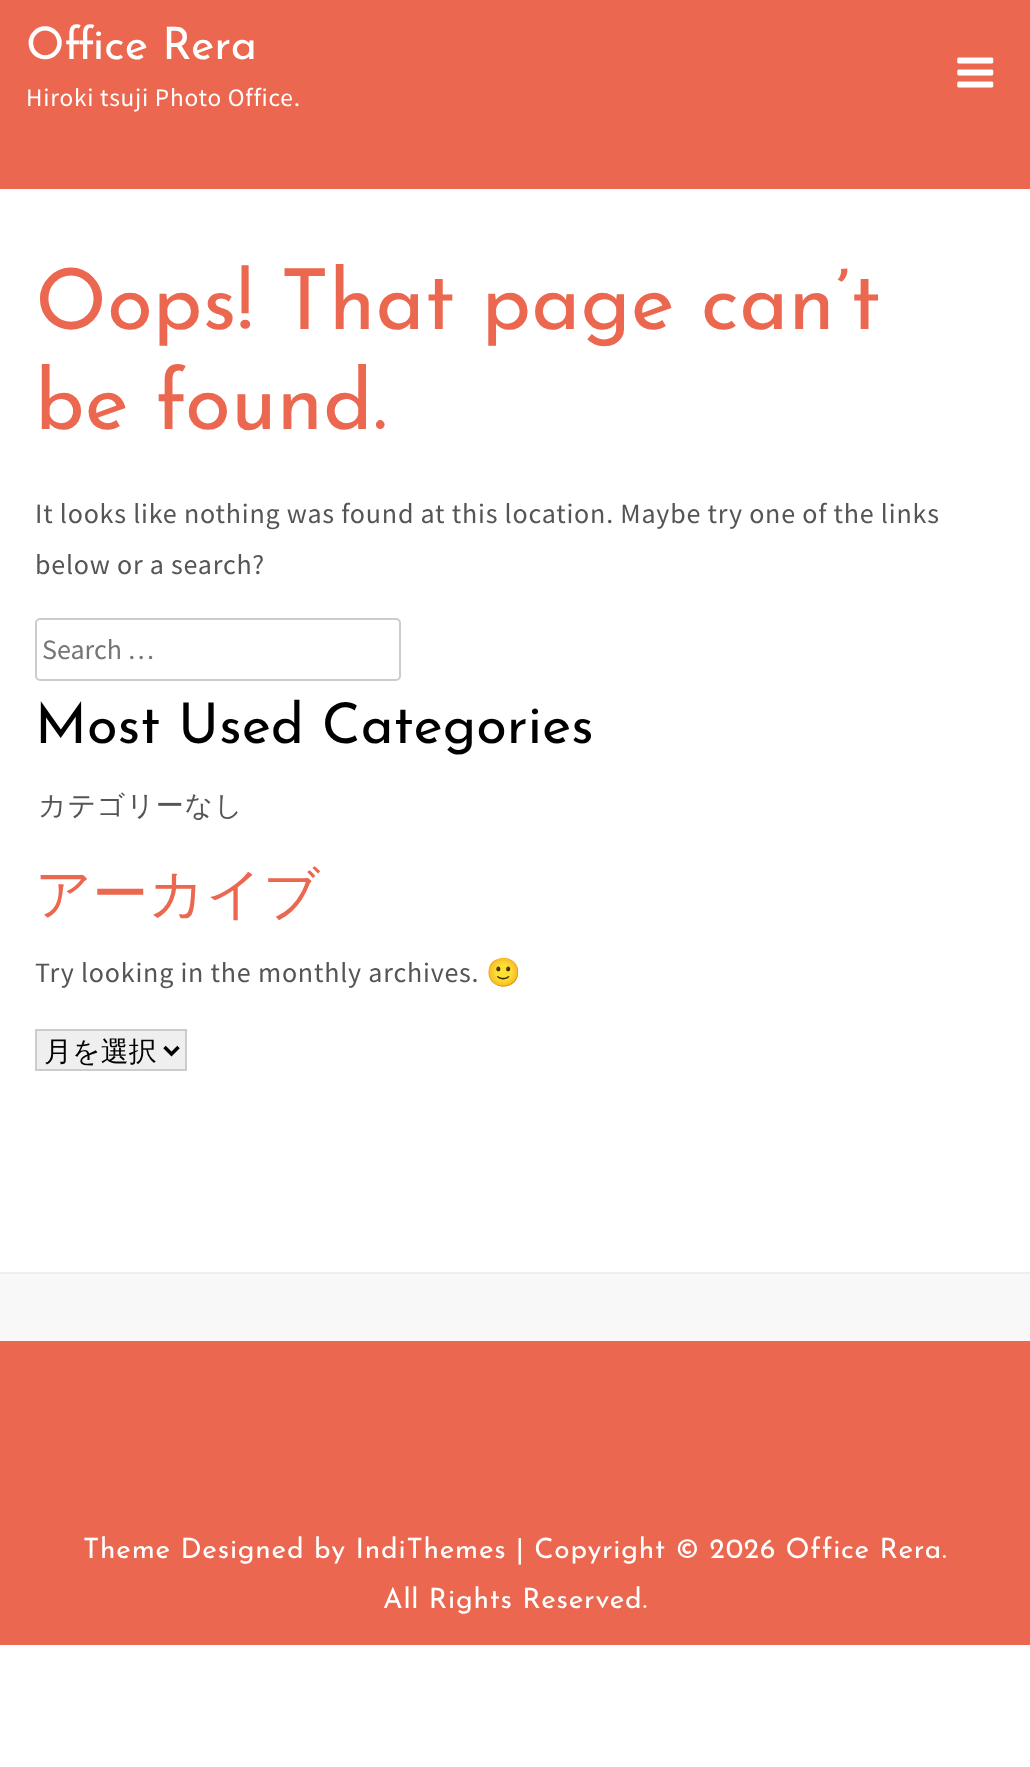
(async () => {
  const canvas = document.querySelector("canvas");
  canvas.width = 1030;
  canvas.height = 1767;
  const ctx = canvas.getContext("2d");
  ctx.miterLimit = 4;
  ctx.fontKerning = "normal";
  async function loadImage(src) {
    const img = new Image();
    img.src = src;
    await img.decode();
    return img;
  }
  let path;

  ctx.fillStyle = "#ffffff";
  ctx.fillRect(0, 0, 1030, 1767);
  ctx.fillStyle = "#eb674f";
  ctx.fillRect(0, 0, 1030, 189);
  ctx.drawImage(await loadImage("img/1.png"), 957, 57, 37, 31);
  ctx.beginPath();
  ctx.roundRect(36, 619, 364, 61, 4);
  ctx.strokeStyle = "#cccccc";
  ctx.lineWidth = 2;
  ctx.stroke();
  ctx.fillStyle = "#efefef";
  ctx.beginPath();
  ctx.rect(36, 1030, 150, 40);
  ctx.fill();
  ctx.stroke();
  path = new Path2D("M164.5 1047L171.5 1054L178.5 1047");
  ctx.strokeStyle = "#000000";
  ctx.lineWidth = 3.5;
  ctx.stroke(path);
  for (const [x, y, w, h, color] of [
    [0, 1274, 1030, 67, "#f8f8f8"],
    [0, 1272, 1030, 2, "#eeeeee"],
    [0, 1341, 1030, 304, "#eb674f"],
  ]) {
    ctx.fillStyle = color;
    ctx.fillRect(x, y, w, h);
  }
  ctx.font = "100 44.75px Josefin Sans";
  ctx.fillStyle = "#ffffff";
  ctx.fillText("Office Rera", 26, 59);
  ctx.letterSpacing = "0.78px";
  ctx.font = "25.25px Source Sans Pro";
  ctx.fillText("Hiroki tsuji Photo Office.", 26, 106);
  ctx.letterSpacing = "0px";
  ctx.font = "100 84px Josefin Sans";
  ctx.fillStyle = "#eb674f";
  ctx.fillText("Oops! That page can’t", 35, 329);
  ctx.fillText("be found.", 35, 429);
  ctx.letterSpacing = "0.78px";
  ctx.font = "28px Source Sans Pro";
  ctx.fillStyle = "#555555";
  ctx.fillText("It looks like nothing was found at this location. Maybe try one of the links", 35, 523);
  ctx.fillText("below or a search?", 35, 574);
  ctx.letterSpacing = "0px";
  ctx.fillStyle = "#757575";
  ctx.fillText("Search …", 42, 659);
  ctx.font = "100 56px Josefin Sans";
  ctx.fillStyle = "#000000";
  ctx.fillText("Most Used Categories", 35, 743);
  ctx.letterSpacing = "0.78px";
  ctx.font = "500 28px WenQuanYi Zen Hei";
  ctx.fillStyle = "#555555";
  ctx.fillText("カテゴリーなし", 38, 815);
  ctx.letterSpacing = "0px";
  ctx.font = "500 56px WenQuanYi Zen Hei";
  ctx.fillStyle = "#eb674f";
  ctx.fillText("アーカイブ", 35, 913);
  ctx.letterSpacing = "0.78px";
  ctx.font = "28px Source Sans Pro";
  ctx.fillStyle = "#555555";
  ctx.fillText("Try looking in the monthly archives.", 35, 982);
  ctx.font = "28px Noto Color Emoji";
  ctx.fillText("🙂", 486, 982);
  ctx.letterSpacing = "0px";
  ctx.font = "500 28px WenQuanYi Zen Hei";
  ctx.fillStyle = "#000000";
  ctx.fillText("月を選択", 44, 1061);
  ctx.letterSpacing = "0.78px";
  ctx.font = "100 28px Josefin Sans";
  ctx.fillStyle = "#ffffff";
  ctx.fillText("Theme Designed by IndiThemes | Copyright © 2026 Office Rera.", 83, 1558);
  ctx.fillText("All Rights Reserved.", 383, 1608);
})();
